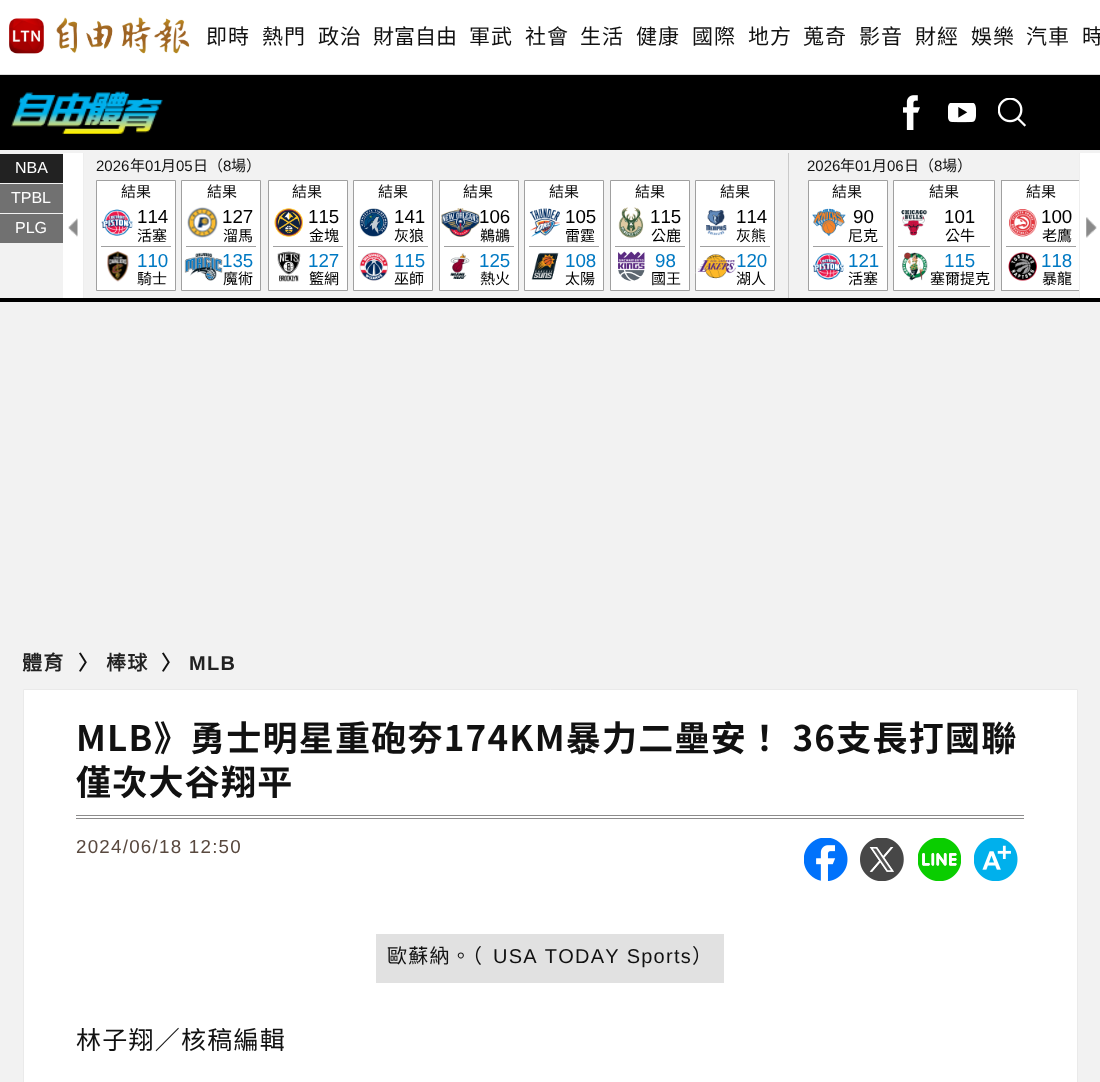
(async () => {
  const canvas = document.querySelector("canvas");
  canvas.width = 1100;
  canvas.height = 1082;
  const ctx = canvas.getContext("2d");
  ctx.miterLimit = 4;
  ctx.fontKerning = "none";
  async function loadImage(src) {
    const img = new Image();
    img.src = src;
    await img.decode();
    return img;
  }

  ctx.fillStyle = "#f2f2f2";
  ctx.fillRect(0, 0, 1100, 1082);
  ctx.fillStyle = "#ffffff";
  ctx.fillRect(0, 0, 1100, 74);
  ctx.fillStyle = "#dcdcdc";
  ctx.fillRect(0, 74, 1100, 1);
  ctx.drawImage(await loadImage("img/1.png"), 9, 17, 181, 37);
  ctx.fillStyle = "#000000";
  ctx.fillRect(0, 75, 1100, 75);
  ctx.drawImage(await loadImage("img/2.png"), 11, 91, 152, 43);
  ctx.drawImage(await loadImage("img/3.png"), 903, 95, 17, 35);
  ctx.drawImage(await loadImage("img/4.png"), 948, 103, 28, 20);
  ctx.drawImage(await loadImage("img/5.png"), 998, 98, 28, 29);
  for (const [x, y, w, h, color] of [
    [0, 298, 1100, 4, "#000000"],
    [0, 154, 63, 29, "#222222"],
    [0, 184, 63, 29, "#717171"],
    [0, 214, 63, 29, "#717171"],
    [63, 153, 20, 145, "#ffffff"],
  ]) {
    ctx.fillStyle = color;
    ctx.fillRect(x, y, w, h);
  }
  ctx.drawImage(await loadImage("img/6.png"), 68, 218, 10, 19);
  ctx.fillStyle = "#eeeeee";
  ctx.fillRect(83, 153, 1, 145);
  ctx.fillStyle = "#cacaca";
  ctx.fillRect(788, 153, 1, 145);
  ctx.fillStyle = "#ffffff";
  ctx.beginPath();
  ctx.rect(96.5, 180.5, 79, 110);
  ctx.fill();
  ctx.strokeStyle = "#a0a0a0";
  ctx.stroke();
  ctx.fillStyle = "#a0a0a0";
  ctx.fillRect(101, 246, 70, 1);
  ctx.drawImage(await loadImage("img/7.png"), 101, 209, 32, 27);
  ctx.drawImage(await loadImage("img/8.png"), 107, 251, 22, 31);
  ctx.fillStyle = "#ffffff";
  ctx.beginPath();
  ctx.rect(181.5, 180.5, 79, 110);
  ctx.fill();
  ctx.stroke();
  ctx.fillStyle = "#a0a0a0";
  ctx.fillRect(186, 246, 70, 1);
  ctx.drawImage(await loadImage("img/9.png"), 187, 207, 31, 31);
  ctx.drawImage(await loadImage("img/10.png"), 184, 252, 39, 29);
  ctx.fillStyle = "#ffffff";
  ctx.beginPath();
  ctx.rect(268.5, 180.5, 79, 110);
  ctx.fill();
  ctx.stroke();
  ctx.fillStyle = "#a0a0a0";
  ctx.fillRect(273, 246, 70, 1);
  ctx.drawImage(await loadImage("img/11.png"), 274, 208, 29, 29);
  ctx.drawImage(await loadImage("img/12.png"), 277, 251, 24, 31);
  ctx.fillStyle = "#ffffff";
  ctx.beginPath();
  ctx.rect(353.5, 180.5, 79, 110);
  ctx.fill();
  ctx.stroke();
  ctx.fillStyle = "#a0a0a0";
  ctx.fillRect(358, 246, 70, 1);
  ctx.drawImage(await loadImage("img/13.png"), 359, 208, 29, 29);
  ctx.drawImage(await loadImage("img/14.png"), 359, 252, 29, 29);
  ctx.fillStyle = "#ffffff";
  ctx.beginPath();
  ctx.rect(439.5, 180.5, 79, 110);
  ctx.fill();
  ctx.stroke();
  ctx.fillStyle = "#a0a0a0";
  ctx.fillRect(444, 246, 70, 1);
  ctx.drawImage(await loadImage("img/15.png"), 441, 208, 39, 29);
  ctx.drawImage(await loadImage("img/16.png"), 450, 253, 20, 26);
  ctx.fillStyle = "#ffffff";
  ctx.beginPath();
  ctx.rect(524.5, 180.5, 79, 110);
  ctx.fill();
  ctx.stroke();
  ctx.fillStyle = "#a0a0a0";
  ctx.fillRect(529, 246, 70, 1);
  ctx.drawImage(await loadImage("img/17.png"), 529, 208, 31, 29);
  ctx.drawImage(await loadImage("img/18.png"), 531, 252, 28, 28);
  ctx.fillStyle = "#ffffff";
  ctx.beginPath();
  ctx.rect(610.5, 180.5, 79, 110);
  ctx.fill();
  ctx.stroke();
  ctx.fillStyle = "#a0a0a0";
  ctx.fillRect(615, 246, 70, 1);
  ctx.drawImage(await loadImage("img/19.png"), 618, 207, 26, 31);
  ctx.drawImage(await loadImage("img/20.png"), 618, 251, 27, 31);
  ctx.fillStyle = "#ffffff";
  ctx.beginPath();
  ctx.rect(695.5, 180.5, 79, 110);
  ctx.fill();
  ctx.stroke();
  ctx.fillStyle = "#a0a0a0";
  ctx.fillRect(700, 246, 70, 1);
  ctx.drawImage(await loadImage("img/21.png"), 706, 210, 21, 26);
  ctx.fillStyle = "#ffffff";
  ctx.beginPath();
  ctx.rect(808.5, 180.5, 79, 110);
  ctx.fill();
  ctx.stroke();
  ctx.fillStyle = "#a0a0a0";
  ctx.fillRect(813, 246, 70, 1);
  ctx.drawImage(await loadImage("img/23.png"), 812, 208, 34, 28);
  ctx.drawImage(await loadImage("img/24.png"), 813, 252, 31, 28);
  ctx.fillStyle = "#ffffff";
  ctx.beginPath();
  ctx.rect(893.5, 180.5, 101, 110);
  ctx.fill();
  ctx.stroke();
  ctx.fillStyle = "#a0a0a0";
  ctx.fillRect(898, 246, 92, 1);
  ctx.drawImage(await loadImage("img/25.png"), 901, 210, 27, 26);
  ctx.drawImage(await loadImage("img/26.png"), 902, 252, 26, 29);
  ctx.fillStyle = "#ffffff";
  ctx.fillRect(1002, 181, 77, 109);
  ctx.strokeRect(1001.5, 180.5, 79, 110);
  ctx.fillStyle = "#a0a0a0";
  ctx.fillRect(1006, 246, 70, 1);
  ctx.drawImage(await loadImage("img/27.png"), 1009, 209, 28, 28);
  ctx.drawImage(await loadImage("img/28.png"), 1008, 252, 29, 29);
  ctx.fillStyle = "#ffffff";
  ctx.fillRect(1080, 153, 20, 145);
  ctx.drawImage(await loadImage("img/29.png"), 1086, 217, 11, 21);
  ctx.fillStyle = "#eeeeee";
  ctx.fillRect(1079, 153, 1, 145);
  ctx.fillStyle = "#ffffff";
  ctx.beginPath();
  ctx.rect(23.5, 689.5, 1054, 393);
  ctx.fill();
  ctx.strokeStyle = "#eaeaea";
  ctx.stroke();
  ctx.fillStyle = "#8c8b8b";
  ctx.fillRect(76, 815, 948, 1);
  ctx.fillRect(76, 818, 948, 1);
  ctx.drawImage(await loadImage("img/30.png"), 804, 838, 44, 43);
  ctx.drawImage(await loadImage("img/31.png"), 860, 838, 44, 43);
  ctx.drawImage(await loadImage("img/32.png"), 918, 838, 43, 43);
  ctx.drawImage(await loadImage("img/33.png"), 974, 838, 44, 43);
  ctx.fillStyle = "#e1e1e1";
  ctx.fillRect(376, 934, 348, 49);
  ctx.letterSpacing = "1px";
  ctx.font = "21px Noto Sans CJK TC";
  ctx.fillStyle = "#111111";
  for (const [text, x, y] of [
    ["即時", 206, 44],
    ["熱門", 262, 44],
    ["政治", 318, 44],
  ]) {
    ctx.fillText(text, x, y);
  }
  ctx.letterSpacing = "0px";
  ctx.fillText("財富自由", 373, 44);
  ctx.letterSpacing = "1px";
  for (const [text, x, y] of [
    ["軍武", 469, 44],
    ["社會", 525, 44],
    ["生活", 580, 44],
    ["健康", 636, 44],
    ["國際", 692, 44],
    ["地方", 748, 44],
    ["蒐奇", 803, 44],
    ["影音", 859, 44],
    ["財經", 915, 44],
    ["娛樂", 971, 44],
    ["汽車", 1026, 44],
    ["時", 1082, 44],
  ]) {
    ctx.fillText(text, x, y);
  }
  ctx.letterSpacing = "0px";
  ctx.font = "16px Liberation Sans";
  ctx.fillStyle = "#ffffff";
  for (const [text, x, y] of [
    ["NBA", 15, 173],
    ["TPBL", 11, 203],
    ["PLG", 15, 233],
  ]) {
    ctx.fillText(text, x, y);
  }
  ctx.font = "15px Liberation Sans";
  ctx.fillStyle = "#111111";
  ctx.fillText("2026", 96, 171);
  ctx.font = "15px Noto Sans CJK TC";
  ctx.fillText("年", 130, 171);
  ctx.font = "15px Liberation Sans";
  ctx.fillText("01", 145, 171);
  ctx.font = "15px Noto Sans CJK TC";
  ctx.fillText("月", 161, 171);
  ctx.font = "15px Liberation Sans";
  ctx.fillText("05", 176, 171);
  ctx.font = "15px Noto Sans CJK TC";
  ctx.fillText("日（", 193, 171);
  ctx.font = "15px Liberation Sans";
  ctx.fillText("8", 223, 171);
  ctx.font = "15px Noto Sans CJK TC";
  ctx.fillText("場）", 231, 171);
  ctx.fillText("結果", 121, 197);
  ctx.font = "18.75px Liberation Sans";
  ctx.fillStyle = "#000000";
  ctx.fillText("114", 137, 223);
  ctx.font = "15px Noto Sans CJK TC";
  ctx.fillText("活塞", 137, 241);
  ctx.font = "18.75px Liberation Sans";
  ctx.fillStyle = "#0079c3";
  ctx.fillText("110", 137, 267);
  ctx.font = "15px Noto Sans CJK TC";
  ctx.fillStyle = "#000000";
  ctx.fillText("騎士", 137, 284);
  ctx.fillStyle = "#111111";
  ctx.fillText("結果", 207, 197);
  ctx.font = "18.75px Liberation Sans";
  ctx.fillStyle = "#000000";
  ctx.fillText("127", 222, 223);
  ctx.font = "15px Noto Sans CJK TC";
  ctx.fillText("溜馬", 223, 241);
  ctx.font = "18.75px Liberation Sans";
  ctx.fillStyle = "#0079c3";
  ctx.fillText("135", 222, 267);
  ctx.font = "15px Noto Sans CJK TC";
  ctx.fillStyle = "#000000";
  ctx.fillText("魔術", 223, 284);
  ctx.fillStyle = "#111111";
  ctx.fillText("結果", 292, 197);
  ctx.font = "18.75px Liberation Sans";
  ctx.fillStyle = "#000000";
  ctx.fillText("115", 308, 223);
  ctx.font = "15px Noto Sans CJK TC";
  ctx.fillText("金塊", 309, 241);
  ctx.font = "18.75px Liberation Sans";
  ctx.fillStyle = "#0079c3";
  ctx.fillText("127", 308, 267);
  ctx.font = "15px Noto Sans CJK TC";
  ctx.fillStyle = "#000000";
  ctx.fillText("籃網", 309, 284);
  ctx.fillStyle = "#111111";
  ctx.fillText("結果", 378, 197);
  ctx.font = "18.75px Liberation Sans";
  ctx.fillStyle = "#000000";
  ctx.fillText("141", 394, 223);
  ctx.font = "15px Noto Sans CJK TC";
  ctx.fillText("灰狼", 394, 241);
  ctx.font = "18.75px Liberation Sans";
  ctx.fillStyle = "#0079c3";
  ctx.fillText("115", 394, 267);
  ctx.font = "15px Noto Sans CJK TC";
  ctx.fillStyle = "#000000";
  ctx.fillText("巫師", 394, 284);
  ctx.fillStyle = "#111111";
  ctx.fillText("結果", 463, 197);
  ctx.font = "18.75px Liberation Sans";
  ctx.fillStyle = "#000000";
  ctx.fillText("106", 479, 223);
  ctx.font = "15px Noto Sans CJK TC";
  ctx.fillText("鵜鶘", 480, 241);
  ctx.font = "18.75px Liberation Sans";
  ctx.fillStyle = "#0079c3";
  ctx.fillText("125", 479, 267);
  ctx.font = "15px Noto Sans CJK TC";
  ctx.fillStyle = "#000000";
  ctx.fillText("熱火", 480, 284);
  ctx.fillStyle = "#111111";
  ctx.fillText("結果", 549, 197);
  ctx.font = "18.75px Liberation Sans";
  ctx.fillStyle = "#000000";
  ctx.fillText("105", 565, 223);
  ctx.font = "15px Noto Sans CJK TC";
  ctx.fillText("雷霆", 565, 241);
  ctx.font = "18.75px Liberation Sans";
  ctx.fillStyle = "#0079c3";
  ctx.fillText("108", 565, 267);
  ctx.font = "15px Noto Sans CJK TC";
  ctx.fillStyle = "#000000";
  ctx.fillText("太陽", 565, 284);
  ctx.fillStyle = "#111111";
  ctx.fillText("結果", 635, 197);
  ctx.font = "18.75px Liberation Sans";
  ctx.fillStyle = "#000000";
  ctx.fillText("115", 650, 223);
  ctx.font = "15px Noto Sans CJK TC";
  ctx.fillText("公鹿", 651, 241);
  ctx.font = "18.75px Liberation Sans";
  ctx.fillStyle = "#0079c3";
  ctx.fillText("98", 655, 267);
  ctx.font = "15px Noto Sans CJK TC";
  ctx.fillStyle = "#000000";
  ctx.fillText("國王", 651, 284);
  ctx.fillStyle = "#111111";
  ctx.fillText("結果", 720, 197);
  ctx.font = "18.75px Liberation Sans";
  ctx.fillStyle = "#000000";
  ctx.fillText("114", 736, 223);
  ctx.font = "15px Noto Sans CJK TC";
  ctx.fillText("灰熊", 736, 241);
  ctx.font = "18.75px Liberation Sans";
  ctx.fillStyle = "#0079c3";
  ctx.fillText("120", 736, 267);
  ctx.font = "15px Noto Sans CJK TC";
  ctx.fillStyle = "#000000";
  ctx.fillText("湖人", 736, 284);
  ctx.drawImage(await loadImage("img/22.png"), 695, 254, 44, 25);
  ctx.font = "15px Liberation Sans";
  ctx.fillStyle = "#111111";
  ctx.fillText("2026", 807, 171);
  ctx.font = "15px Noto Sans CJK TC";
  ctx.fillText("年", 840, 171);
  ctx.font = "15px Liberation Sans";
  ctx.fillText("01", 855, 171);
  ctx.font = "15px Noto Sans CJK TC";
  ctx.fillText("月", 872, 171);
  ctx.font = "15px Liberation Sans";
  ctx.fillText("06", 887, 171);
  ctx.font = "15px Noto Sans CJK TC";
  ctx.fillText("日（", 904, 171);
  ctx.font = "15px Liberation Sans";
  ctx.fillText("8", 934, 171);
  ctx.font = "15px Noto Sans CJK TC";
  ctx.fillText("場）", 942, 171);
  ctx.fillText("結果", 832, 197);
  ctx.font = "18.75px Liberation Sans";
  ctx.fillStyle = "#000000";
  ctx.fillText("90", 853, 223);
  ctx.font = "15px Noto Sans CJK TC";
  ctx.fillText("尼克", 848, 241);
  ctx.font = "18.75px Liberation Sans";
  ctx.fillStyle = "#0079c3";
  ctx.fillText("121", 848, 267);
  ctx.font = "15px Noto Sans CJK TC";
  ctx.fillStyle = "#000000";
  ctx.fillText("活塞", 848, 284);
  ctx.fillStyle = "#111111";
  ctx.fillText("結果", 929, 197);
  ctx.font = "18.75px Liberation Sans";
  ctx.fillStyle = "#000000";
  ctx.fillText("101", 944, 223);
  ctx.font = "15px Noto Sans CJK TC";
  ctx.fillText("公牛", 945, 241);
  ctx.font = "18.75px Liberation Sans";
  ctx.fillStyle = "#0079c3";
  ctx.fillText("115", 944, 267);
  ctx.font = "15px Noto Sans CJK TC";
  ctx.fillStyle = "#000000";
  ctx.fillText("塞爾提克", 930, 284);
  ctx.fillStyle = "#111111";
  ctx.fillText("結果", 1026, 197);
  ctx.font = "18.75px Liberation Sans";
  ctx.fillStyle = "#000000";
  ctx.fillText("100", 1041, 223);
  ctx.font = "15px Noto Sans CJK TC";
  ctx.fillText("老鷹", 1042, 241);
  ctx.font = "18.75px Liberation Sans";
  ctx.fillStyle = "#0079c3";
  ctx.fillText("118", 1041, 267);
  ctx.font = "15px Noto Sans CJK TC";
  ctx.fillStyle = "#000000";
  ctx.fillText("暴龍", 1042, 284);
  ctx.letterSpacing = "1.25px";
  ctx.font = "bold 20px Noto Sans CJK TC";
  ctx.fillStyle = "#222222";
  ctx.fillText("體育", 22, 670);
  ctx.fillStyle = "#111111";
  ctx.fillText("〉", 78, 670);
  ctx.fillStyle = "#222222";
  ctx.fillText("棒球", 106, 670);
  ctx.fillStyle = "#111111";
  ctx.fillText("〉", 161, 670);
  ctx.font = "bold 20px Liberation Sans";
  ctx.fillStyle = "#222222";
  ctx.fillText("MLB", 189, 670);
  ctx.font = "bold 35px Noto Sans TC";
  ctx.fillStyle = "#111111";
  ctx.fillText("MLB》勇士明星重砲夯174KM暴力二壘安！ 36支長打國聯", 76, 751);
  ctx.fillText("僅次大谷翔平", 76, 795);
  ctx.font = "18.75px Liberation Sans";
  ctx.fillStyle = "#59493f";
  ctx.fillText("2024/06/18 12:50", 76, 853);
  ctx.font = "20px Noto Sans CJK TC";
  ctx.fillStyle = "#111111";
  ctx.fillText("歐蘇納。（", 387, 963);
  ctx.font = "20px Liberation Sans";
  ctx.fillText("USA TODAY Sports", 493, 963);
  ctx.font = "20px Noto Sans CJK TC";
  ctx.fillText("）", 692, 963);
  ctx.font = "25px Noto Sans CJK TC";
  ctx.fillText("林子翔／核稿編輯", 76, 1049);
})();
